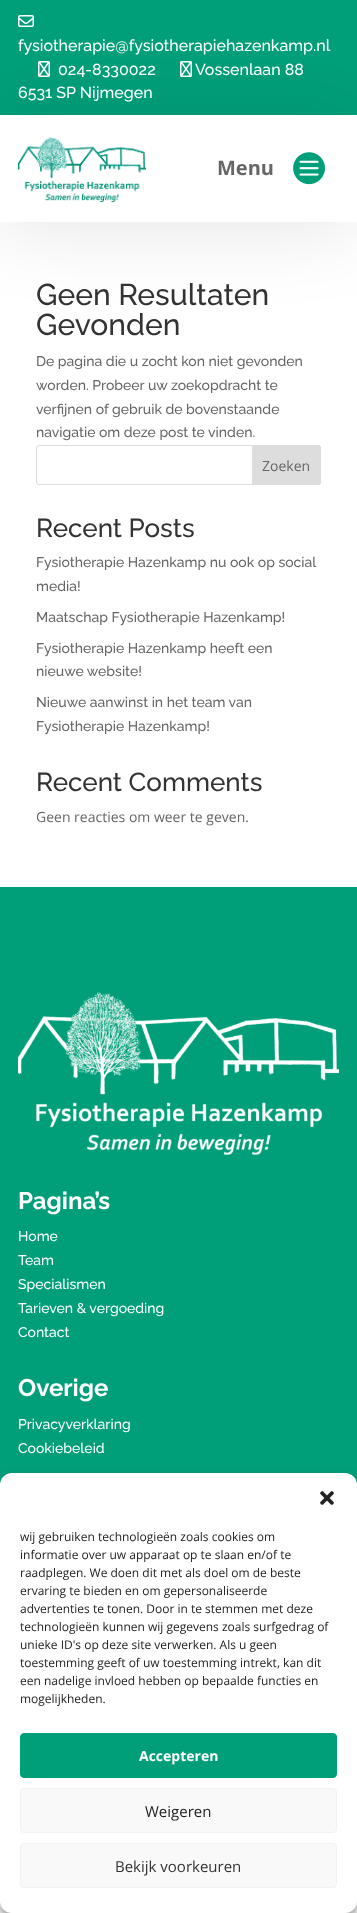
(async () => {
  const canvas = document.querySelector("canvas");
  canvas.width = 357;
  canvas.height = 1913;
  const ctx = canvas.getContext("2d");
  ctx.miterLimit = 4;
  ctx.fontKerning = "normal";
  async function loadImage(src) {
    const img = new Image();
    img.src = src;
    await img.decode();
    return img;
  }
  let path;

  ctx.fillStyle = "#ffffff";
  ctx.fillRect(0, 0, 357, 1913);
  ctx.fillStyle = "#009f7a";
  ctx.fillRect(0, 0, 357, 115);
  ctx.drawImage(await loadImage("img/1.png"), 18, 15, 16, 12);
  ctx.drawImage(await loadImage("img/2.png"), 38, 61, 12, 16);
  ctx.drawImage(await loadImage("img/2.png"), 180, 61, 12, 16);
  ctx.save();
  path = new Path2D("M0 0H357V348H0ZM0 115H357V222H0Z");
  ctx.clip(path, "evenodd");
  ctx.fillStyle = "rgba(0, 0, 0, 0.1)";
  ctx.filter = "blur(40px)";
  ctx.beginPath();
  ctx.rect(0, 120, 357, 107);
  ctx.fill();
  ctx.filter = "none";
  ctx.restore();
  ctx.drawImage(await loadImage("img/3.png"), 18, 137, 128, 66);
  ctx.drawImage(await loadImage("img/4.png"), 293, 152, 32, 33);
  ctx.beginPath();
  ctx.roundRect(36.5, 445.5, 284, 39, 2.5);
  ctx.strokeStyle = "#dddddd";
  ctx.stroke();
  ctx.fillStyle = "#dddddd";
  ctx.beginPath();
  ctx.roundRect(252.5, 445.5, 68, 39, [0, 2.5, 2.5, 0]);
  ctx.fill();
  ctx.stroke();
  ctx.fillStyle = "#009f7a";
  ctx.fillRect(0, 887, 357, 598);
  ctx.drawImage(await loadImage("img/5.png"), 18, 992, 321, 163);
  ctx.fillStyle = "rgba(0, 0, 0, 0.23)";
  ctx.filter = "blur(3px)";
  ctx.beginPath();
  ctx.roundRect(0, 1479, 357, 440, 12);
  ctx.fill();
  ctx.filter = "none";
  ctx.fillStyle = "rgba(0, 0, 0, 0.19)";
  ctx.filter = "blur(10px)";
  ctx.beginPath();
  ctx.roundRect(0, 1483, 357, 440, 12);
  ctx.fill();
  ctx.filter = "none";
  ctx.fillStyle = "#ffffff";
  ctx.beginPath();
  ctx.roundRect(0, 1473, 357, 440, 12);
  ctx.fill();
  ctx.drawImage(await loadImage("img/6.png"), 320, 1491, 14, 14);
  ctx.fillStyle = "#009f7a";
  ctx.beginPath();
  ctx.roundRect(20.5, 1733.5, 316, 44, 3.5);
  ctx.fill();
  ctx.strokeStyle = "#009f7a";
  ctx.stroke();
  ctx.fillStyle = "#f9f9f9";
  ctx.beginPath();
  ctx.roundRect(20.5, 1788.5, 316, 44, 3.5);
  ctx.fill();
  ctx.strokeStyle = "#f2f2f2";
  ctx.stroke();
  ctx.beginPath();
  ctx.roundRect(20.5, 1843.5, 316, 44, 3.5);
  ctx.fill();
  ctx.stroke();
  ctx.font = "500 16px Raleway";
  ctx.fillStyle = "#ffffff";
  for (const [text, x, y] of [
    ["fysiotherapie@fysiotherapiehazenkamp.nl", 18, 51],
    ["024-8330022", 58, 75],
    ["Vossenlaan 88", 195, 75],
    ["6531 SP Nijmegen", 18, 98],
  ]) {
    ctx.fillText(text, x, y);
  }
  ctx.font = "bold 20px Open Sans";
  ctx.fillStyle = "#666666";
  ctx.fillText("Menu", 217, 175);
  ctx.font = "500 30px Raleway";
  ctx.fillStyle = "#333333";
  ctx.fillText("Geen Resultaten", 36, 305);
  ctx.fillText("Gevonden", 36, 335);
  ctx.font = "500 14px Raleway";
  ctx.fillStyle = "#666666";
  for (const [text, x, y] of [
    ["De pagina die u zocht kon niet gevonden", 36, 366],
    ["worden. Probeer uw zoekopdracht te", 36, 390],
    ["verfijnen of gebruik de bovenstaande", 36, 414],
    ["navigatie om deze post te vinden.", 36, 437],
  ]) {
    ctx.fillText(text, x, y);
  }
  ctx.font = "14px Open Sans";
  ctx.fillText("Zoeken", 262, 471);
  ctx.font = "500 26px Raleway";
  ctx.fillStyle = "#333333";
  ctx.fillText("Recent Posts", 36, 537);
  ctx.font = "500 14px Raleway";
  ctx.fillStyle = "#666666";
  for (const [text, x, y] of [
    ["Fysiotherapie Hazenkamp nu ook op social", 36, 567],
    ["media!", 36, 591],
    ["Maatschap Fysiotherapie Hazenkamp!", 36, 622],
    ["Fysiotherapie Hazenkamp heeft een", 36, 653],
    ["nieuwe website!", 36, 676],
    ["Nieuwe aanwinst in het team van", 36, 707],
    ["Fysiotherapie Hazenkamp!", 36, 731],
  ]) {
    ctx.fillText(text, x, y);
  }
  ctx.font = "500 26px Raleway";
  ctx.fillStyle = "#333333";
  ctx.fillText("Recent Comments", 36, 791);
  ctx.font = "14px Open Sans";
  ctx.fillStyle = "#666666";
  ctx.fillText("Geen reacties om weer te geven.", 36, 822);
  ctx.font = "bold 24px Raleway";
  ctx.fillStyle = "#ffffff";
  ctx.fillText("Pagina’s", 18, 1209);
  ctx.font = "500 14px Raleway";
  for (const [text, x, y] of [
    ["Home", 18, 1241],
    ["Team", 18, 1265],
    ["Specialismen", 18, 1289],
    ["Tarieven & vergoeding", 18, 1313],
    ["Contact", 18, 1337],
  ]) {
    ctx.fillText(text, x, y);
  }
  ctx.font = "bold 24px Raleway";
  ctx.fillText("Overige", 18, 1396);
  ctx.font = "500 14px Raleway";
  ctx.fillText("Privacyverklaring", 18, 1429);
  ctx.fillText("Cookiebeleid", 18, 1453);
  ctx.font = "12px Open Sans";
  ctx.fillStyle = "#222222";
  for (const [text, x, y] of [
    ["wij gebruiken technologieën zoals cookies om", 20, 1541],
    ["informatie over uw apparaat op te slaan en/of te", 20, 1559],
    ["raadplegen. We doen dit met als doel om de beste", 20, 1577],
    ["ervaring te bieden en om gepersonaliseerde", 20, 1595],
    ["advertenties te tonen. Door in te stemmen met deze", 20, 1613],
    ["technologieën kunnen wij gegevens zoals surfgedrag of", 20, 1631],
    ["unieke ID's op deze site verwerken. Als u geen", 20, 1649],
    ["toestemming geeft of uw toestemming intrekt, kan dit", 20, 1667],
    ["een nadelige invloed hebben op bepaalde functies en", 20, 1685],
    ["mogelijkheden.", 20, 1703],
  ]) {
    ctx.fillText(text, x, y);
  }
  ctx.font = "bold 14px Open Sans";
  ctx.fillStyle = "#ffffff";
  ctx.fillText("Accepteren", 139, 1761);
  ctx.font = "15px Open Sans";
  ctx.fillStyle = "#222222";
  ctx.fillText("Weigeren", 145, 1817);
  ctx.fillStyle = "#333333";
  ctx.fillText("Bekijk voorkeuren", 115, 1872);
})();
